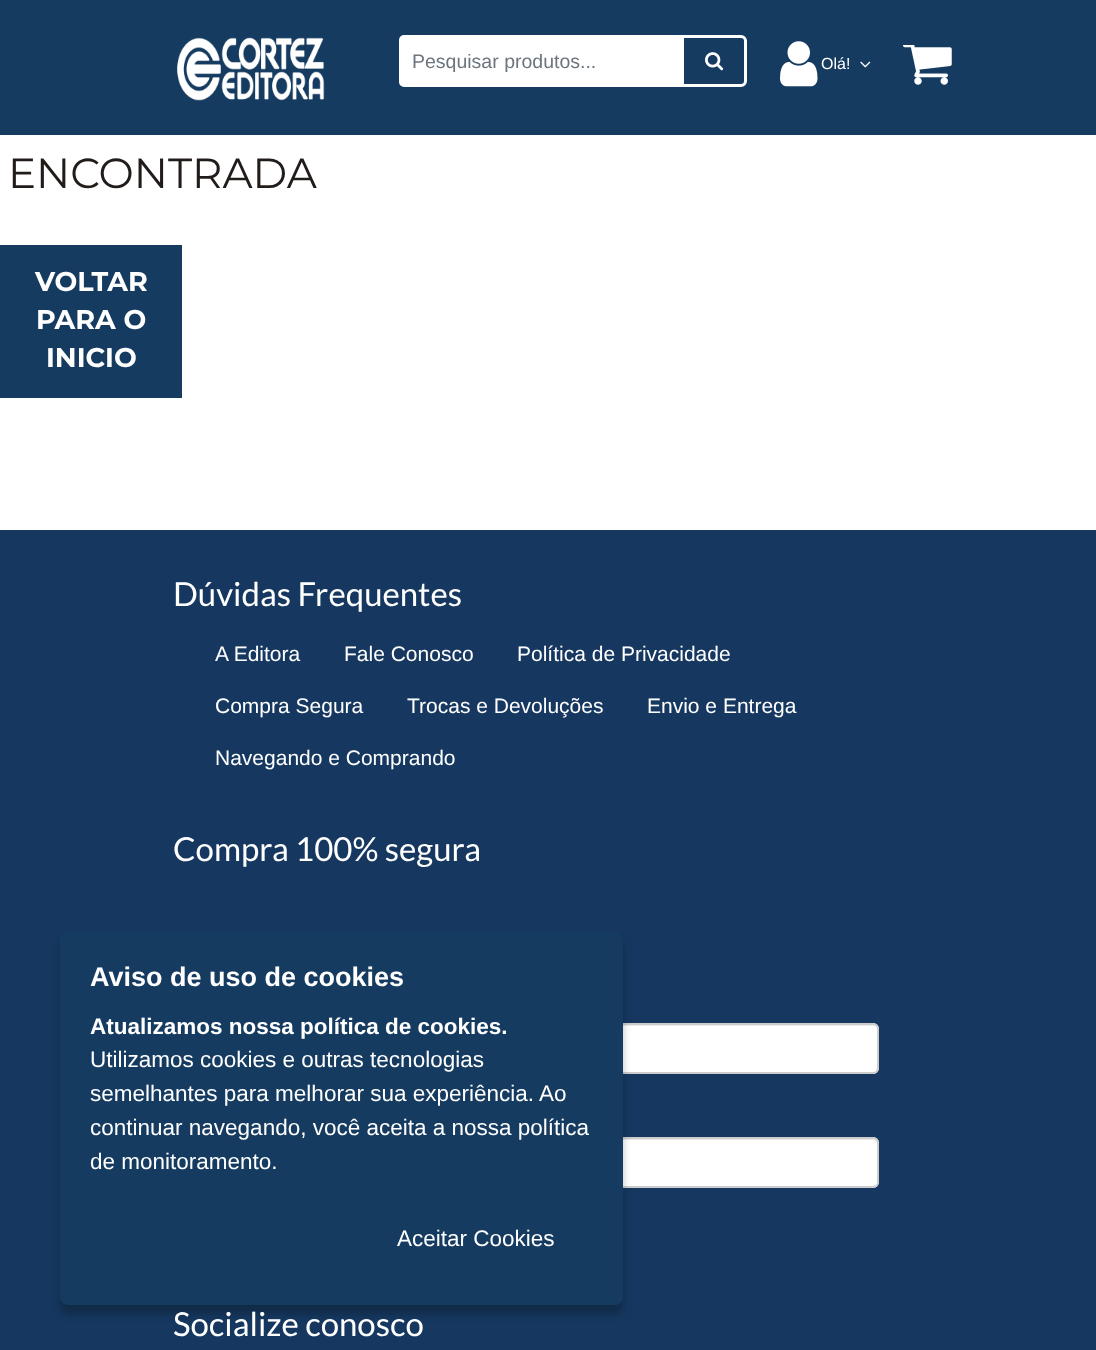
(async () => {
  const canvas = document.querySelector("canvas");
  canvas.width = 1096;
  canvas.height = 1350;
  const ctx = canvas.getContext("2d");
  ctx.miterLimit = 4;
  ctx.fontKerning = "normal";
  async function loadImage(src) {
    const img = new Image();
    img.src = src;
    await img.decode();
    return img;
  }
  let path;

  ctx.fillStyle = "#ffffff";
  ctx.fillRect(0, 0, 1096, 1350);
  ctx.fillStyle = "#163b60";
  ctx.fillRect(0, 0, 1096, 135);
  ctx.drawImage(await loadImage("img/1.png"), 177, 37, 148, 64);
  ctx.beginPath();
  ctx.roundRect(682.5, 36.5, 63, 49, [0, 4.5, 4.5, 0]);
  ctx.strokeStyle = "#ffffff";
  ctx.lineWidth = 3;
  ctx.stroke();
  ctx.fillStyle = "#ffffff";
  ctx.beginPath();
  ctx.roundRect(400, 36, 283, 50, [4, 0, 0, 4]);
  ctx.fill();
  ctx.lineWidth = 2;
  ctx.stroke();
  ctx.drawImage(await loadImage("img/2.png"), 705, 52, 19, 19);
  ctx.drawImage(await loadImage("img/3.png"), 780, 41, 38, 46);
  ctx.drawImage(await loadImage("img/4.png"), 860, 61, 11, 7);
  ctx.drawImage(await loadImage("img/5.png"), 903, 45, 49, 40);
  ctx.fillStyle = "#163b60";
  ctx.fillRect(0, 245, 182, 153);
  ctx.fillStyle = "#163860";
  ctx.fillRect(0, 530, 1096, 820);
  ctx.fillStyle = "#ffffff";
  ctx.beginPath();
  ctx.roundRect(174, 1023, 705, 51, 6);
  ctx.fill();
  ctx.fillStyle = "#ececec";
  path = new Path2D("M180 1026H873C875 1026 878 1028 878 1030C878 1027 876 1025 873 1025H181C178 1025 176 1027 176 1030C176 1028 178 1026 180 1026Z");
  ctx.fill(path);
  ctx.beginPath();
  ctx.roundRect(175, 1024, 703, 49, 5);
  ctx.strokeStyle = "#cccccc";
  ctx.stroke();
  ctx.fillStyle = "#ffffff";
  ctx.beginPath();
  ctx.roundRect(174, 1137, 705, 51, 6);
  ctx.fill();
  ctx.fillStyle = "#ececec";
  path = new Path2D("M180 1140H873C875 1140 878 1142 878 1144C878 1141 876 1139 873 1139H181C178 1139 176 1141 176 1144C176 1142 178 1140 180 1140Z");
  ctx.fill(path);
  ctx.beginPath();
  ctx.roundRect(175, 1138, 703, 49, 5);
  ctx.stroke();
  ctx.fillStyle = "rgba(0, 0, 0, 0.25)";
  ctx.filter = "blur(4.5px)";
  ctx.beginPath();
  ctx.roundRect(60, 941, 563, 373, 8);
  ctx.fill();
  ctx.filter = "none";
  ctx.fillStyle = "#163b60";
  ctx.beginPath();
  ctx.roundRect(60, 932, 563, 373, 8);
  ctx.fill();
  ctx.font = "19.5px Liberation Sans";
  ctx.fillStyle = "#6c757d";
  ctx.fillText("Pesquisar produtos...", 412, 68);
  ctx.font = "16px Liberation Sans";
  ctx.fillStyle = "#ffffff";
  ctx.fillText("Olá!", 821, 69);
  ctx.font = "42px Montserrat";
  ctx.fillStyle = "#211b19";
  ctx.fillText("ENCONTRADA", 8, 188);
  ctx.font = "bold 27px Montserrat";
  ctx.fillStyle = "#ffffff";
  for (const [text, x, y] of [
    ["VOLTAR", 35, 291],
    ["PARA O", 36, 329],
    ["INICIO", 46, 367],
  ]) {
    ctx.fillText(text, x, y);
  }
  ctx.font = "33px Lato";
  ctx.fillText("Dúvidas Frequentes", 173, 606);
  ctx.font = "21px Liberation Sans";
  for (const [text, x, y] of [
    ["A Editora", 215, 661],
    ["Fale Conosco", 344, 661],
    ["Política de Privacidade", 517, 661],
    ["Compra Segura", 215, 713],
    ["Trocas e Devoluções", 407, 713],
    ["Envio e Entrega", 647, 713],
    ["Navegando e Comprando", 215, 765],
  ]) {
    ctx.fillText(text, x, y);
  }
  ctx.font = "33px Lato";
  ctx.fillText("Compra 100% segura", 173, 861);
  ctx.fillText("Socialize conosco", 173, 1336);
  ctx.font = "bold 27px Liberation Sans";
  ctx.fillText("Aviso de uso de cookies", 90, 986);
  ctx.font = "bold 22.5px Liberation Sans";
  ctx.fillText("Atualizamos nossa política de cookies.", 90, 1034);
  ctx.font = "22.5px Liberation Sans";
  for (const [text, x, y] of [
    ["Utilizamos cookies e outras tecnologias", 90, 1067],
    ["semelhantes para melhorar sua experiência. Ao", 90, 1101],
    ["continuar navegando, você aceita a nossa política", 90, 1135],
    ["de monitoramento.", 90, 1169],
    ["Aceitar Cookies", 397, 1246],
  ]) {
    ctx.fillText(text, x, y);
  }
})();
